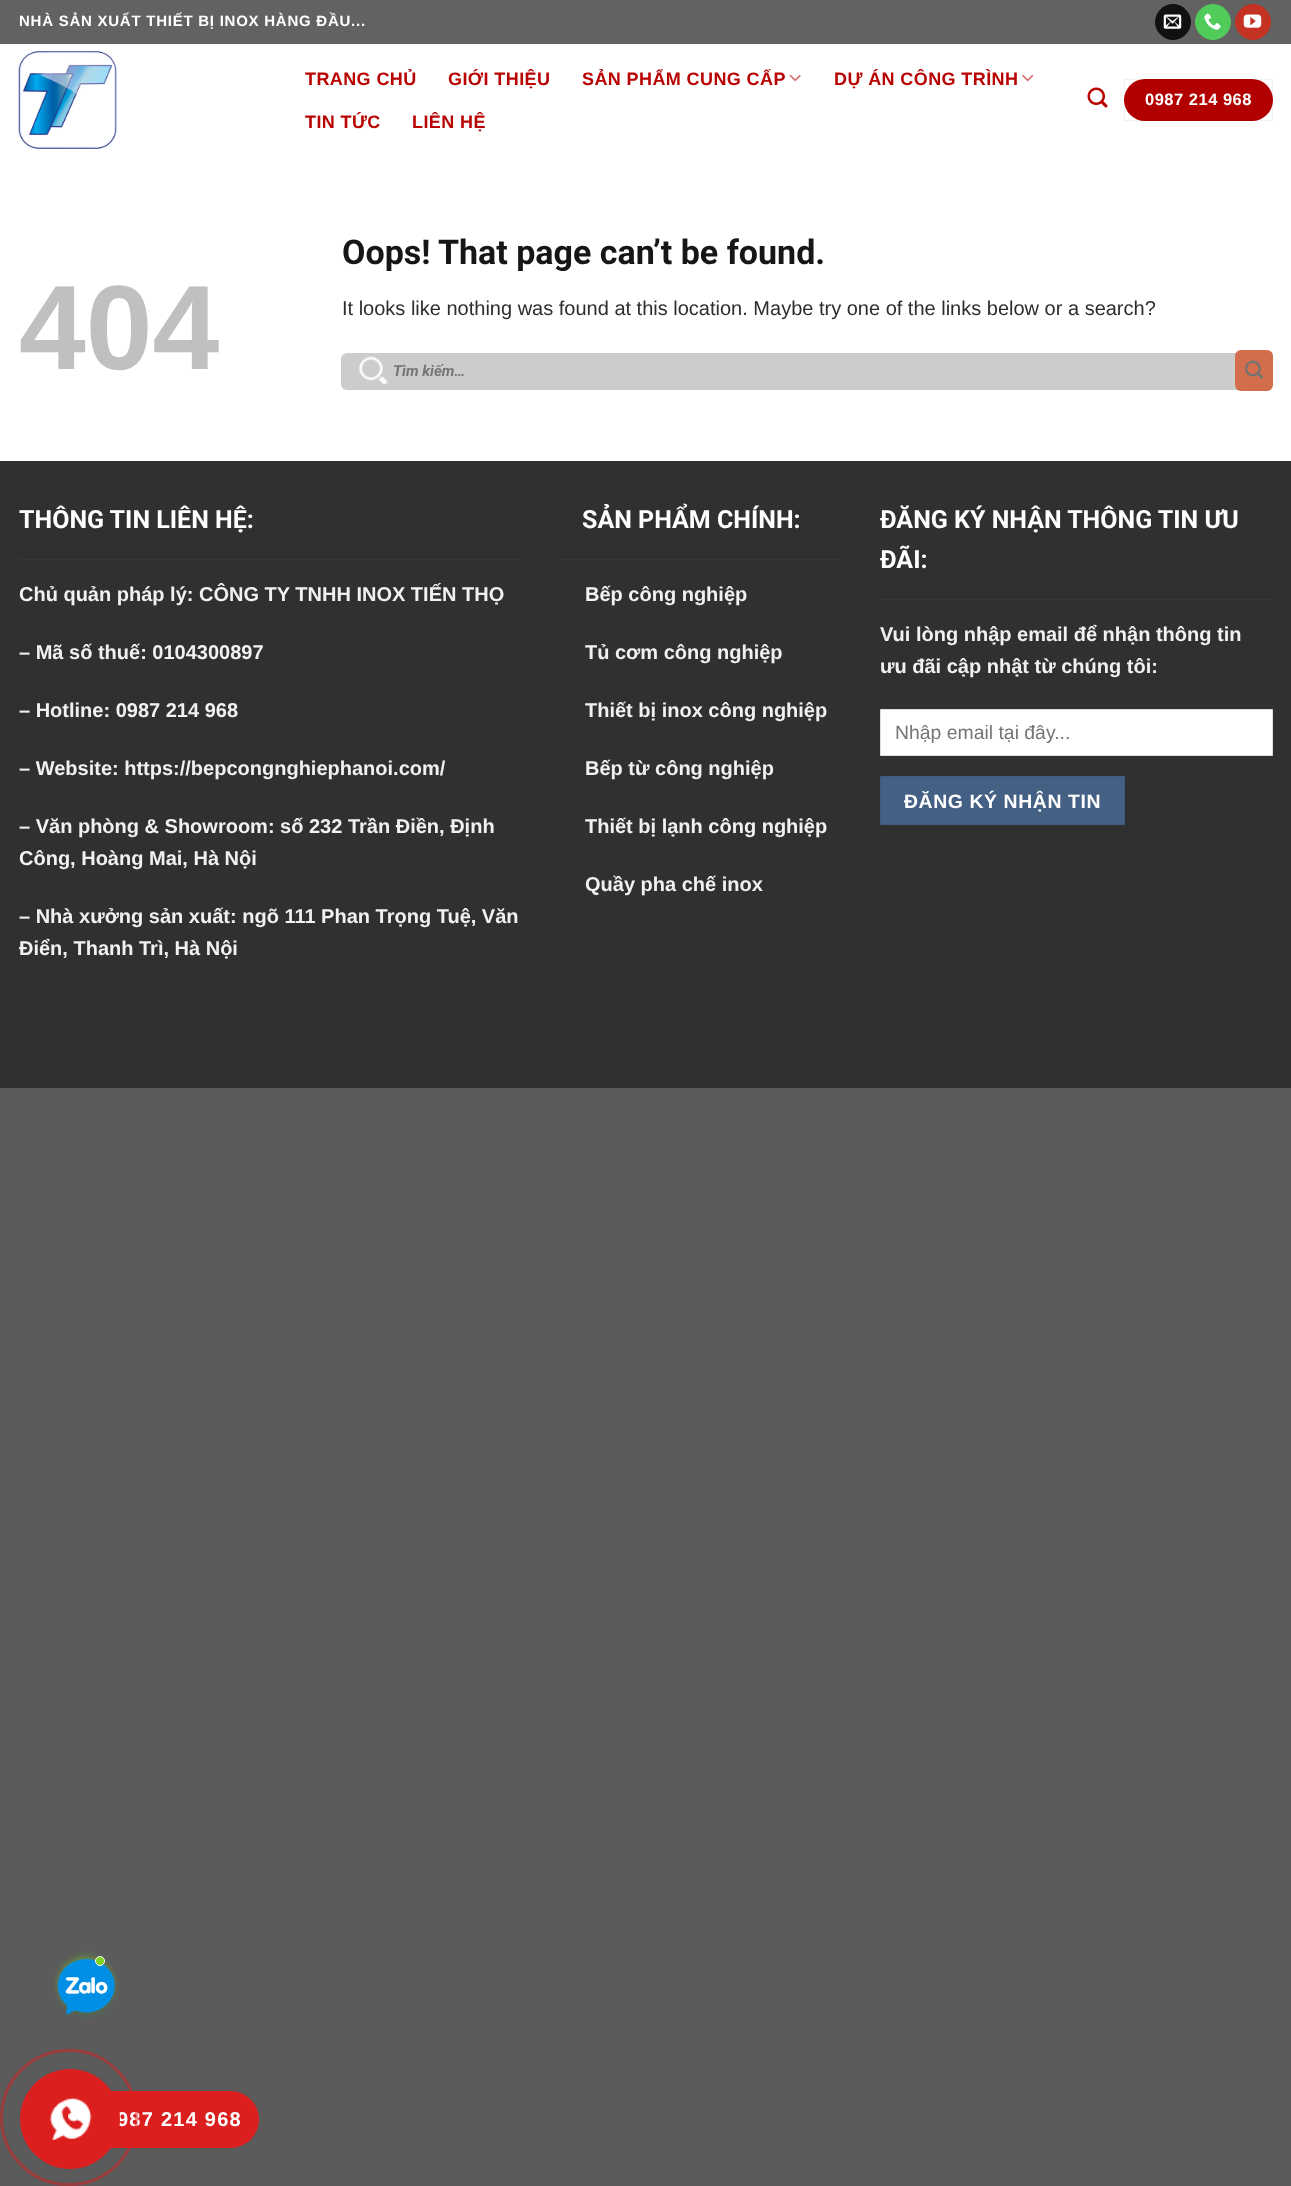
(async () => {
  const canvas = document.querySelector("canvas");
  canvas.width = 1291;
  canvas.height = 2186;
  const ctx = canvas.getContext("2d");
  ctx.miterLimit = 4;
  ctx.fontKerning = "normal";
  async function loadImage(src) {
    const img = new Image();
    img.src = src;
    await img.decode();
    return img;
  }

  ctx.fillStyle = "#5b5b5b";
  ctx.fillRect(0, 0, 1291, 2186);
  ctx.fillStyle = "#ffffff";
  ctx.fillRect(0, 44, 1291, 417);
  ctx.fillStyle = "#626262";
  ctx.fillRect(0, 0, 1291, 44);
  ctx.fillStyle = "#111111";
  ctx.beginPath();
  ctx.arc(1173, 22, 17.5, 0, Math.PI * 2);
  ctx.fill();
  ctx.strokeStyle = "#111111";
  ctx.stroke();
  ctx.drawImage(await loadImage("img/1.png"), 1163, 14, 19, 15);
  ctx.fillStyle = "#51cb5a";
  ctx.beginPath();
  ctx.arc(1213, 22, 17.5, 0, Math.PI * 2);
  ctx.fill();
  ctx.strokeStyle = "#51cb5a";
  ctx.stroke();
  ctx.drawImage(await loadImage("img/2.png"), 1204, 13, 17, 17);
  ctx.fillStyle = "#c33223";
  ctx.beginPath();
  ctx.arc(1253, 22, 17.5, 0, Math.PI * 2);
  ctx.fill();
  ctx.strokeStyle = "#c33223";
  ctx.stroke();
  ctx.drawImage(await loadImage("img/3.png"), 1243, 14, 19, 14);
  ctx.drawImage(await loadImage("img/4.png"), 18, 51, 99, 98);
  ctx.drawImage(await loadImage("img/5.png"), 789, 74, 12, 8);
  ctx.drawImage(await loadImage("img/6.png"), 1022, 74, 12, 8);
  ctx.drawImage(await loadImage("img/7.png"), 1087, 87, 21, 21);
  ctx.fillStyle = "#b20000";
  ctx.beginPath();
  ctx.roundRect(1124, 79, 149, 42, 21);
  ctx.fill();
  ctx.strokeStyle = "rgba(0, 0, 0, 0.05)";
  ctx.strokeRect(1124.5, 79.5, 148, 41);
  ctx.fillStyle = "#cccccc";
  ctx.beginPath();
  ctx.roundRect(341, 353, 902, 37, 6);
  ctx.fill();
  ctx.drawImage(await loadImage("img/8.png"), 358, 356, 30, 28);
  ctx.fillStyle = "#d26e4b";
  ctx.beginPath();
  ctx.roundRect(1235, 350, 38, 41, 6);
  ctx.fill();
  ctx.drawImage(await loadImage("img/9.png"), 1245, 360, 18, 19);
  for (const [x, y, w, h, color] of [
    [0, 462, 1291, 626, "#303030"],
    [0, 461, 1291, 1, "#2e2e2e"],
    [19, 559, 500, 1, "#383838"],
    [556, 559, 287, 1, "#383838"],
    [880, 599, 393, 1, "#383838"],
  ]) {
    ctx.fillStyle = color;
    ctx.fillRect(x, y, w, h);
  }
  ctx.fillStyle = "#ffffff";
  ctx.beginPath();
  ctx.rect(880.5, 709.5, 392, 46);
  ctx.fill();
  ctx.strokeStyle = "#dddddd";
  ctx.stroke();
  ctx.fillStyle = "#446084";
  ctx.beginPath();
  ctx.rect(880.5, 776.5, 244, 48);
  ctx.fill();
  ctx.strokeStyle = "#415b7d";
  ctx.stroke();
  ctx.fillStyle = "#7ed321";
  ctx.filter = "blur(5px)";
  ctx.beginPath();
  ctx.roundRect(61, 1960, 50, 50, 25);
  ctx.fill();
  ctx.filter = "none";
  ctx.drawImage(await loadImage("img/10.png"), 57, 1958, 59, 60);
  ctx.beginPath();
  ctx.arc(100, 1961, 4.5, 0, Math.PI * 2);
  ctx.fill();
  ctx.strokeStyle = "#ffffff";
  ctx.stroke();
  ctx.fillStyle = "#db1e1e";
  ctx.beginPath();
  ctx.roundRect(53, 2091, 206, 57, 28.5);
  ctx.fill();
  ctx.letterSpacing = "0.75px";
  ctx.font = "bold 15px Liberation Sans";
  ctx.fillStyle = "#ffffff";
  ctx.fillText("NHÀ SẢN XUẤT THIẾT BỊ INOX HÀNG ĐẦU...", 19, 26);
  ctx.letterSpacing = "0.4px";
  ctx.font = "bold 18px Liberation Sans";
  ctx.fillStyle = "#b90202";
  for (const [text, x, y] of [
    ["TRANG CHỦ", 305, 85],
    ["GIỚI THIỆU", 448, 85],
    ["SẢN PHẨM CUNG CẤP", 582, 85],
    ["DỰ ÁN CÔNG TRÌNH", 834, 85],
    ["TIN TỨC", 305, 128],
    ["LIÊN HỆ", 412, 128],
  ]) {
    ctx.fillText(text, x, y);
  }
  ctx.letterSpacing = "0.5px";
  ctx.font = "bold 16.5px Liberation Sans";
  ctx.fillStyle = "#ffffff";
  ctx.fillText("0987 214 968", 1145, 105);
  ctx.letterSpacing = "0px";
  ctx.font = "bold 120px Liberation Sans";
  ctx.fillStyle = "#c0c0c0";
  ctx.fillText("404", 19, 369);
  ctx.font = "bold 34px Roboto";
  ctx.fillStyle = "#171616";
  ctx.fillText("Oops! That page can’t be found.", 342, 264);
  ctx.font = "20px Liberation Sans";
  ctx.fillStyle = "#2e2c2c";
  ctx.fillText("It looks like nothing was found at this location. Maybe try one of the links below or a search?", 342, 315);
  ctx.font = "italic bold 15px Roboto";
  ctx.fillStyle = "#757575";
  ctx.fillText("Tìm kiếm…", 393, 376);
  ctx.font = "bold 25px Roboto";
  ctx.fillStyle = "#ffffff";
  ctx.fillText("THÔNG TIN LIÊN HỆ:", 19, 528);
  ctx.font = "bold 20px Liberation Sans";
  ctx.fillStyle = "#f1f1f1";
  for (const [text, x, y] of [
    ["Chủ quản pháp lý: CÔNG TY TNHH INOX TIẾN THỌ", 19, 601],
    ["– Mã số thuế: 0104300897", 19, 659],
    ["– Hotline: 0987 214 968", 19, 717],
    ["– Website: https://bepcongnghiephanoi.com/", 19, 775],
    ["– Văn phòng & Showroom: số 232 Trần Điền, Định", 19, 833],
    ["Công, Hoàng Mai, Hà Nội", 19, 865],
    ["– Nhà xưởng sản xuất: ngõ 111 Phan Trọng Tuệ, Văn", 19, 923],
    ["Điển, Thanh Trì, Hà Nội", 19, 955],
  ]) {
    ctx.fillText(text, x, y);
  }
  ctx.font = "bold 25px Roboto";
  ctx.fillStyle = "#ffffff";
  ctx.fillText("SẢN PHẨM CHÍNH:", 582, 528);
  ctx.font = "bold 20px Liberation Sans";
  ctx.fillStyle = "#f1f1f1";
  for (const [text, x, y] of [
    ["Bếp công nghiệp", 585, 601],
    ["Tủ cơm công nghiệp", 585, 659],
    ["Thiết bị inox công nghiệp", 585, 717],
    ["Bếp từ công nghiệp", 585, 775],
    ["Thiết bị lạnh công nghiệp", 585, 833],
    ["Quầy pha chế inox", 585, 891],
  ]) {
    ctx.fillText(text, x, y);
  }
  ctx.font = "bold 25px Roboto";
  ctx.fillStyle = "#ffffff";
  ctx.fillText("ĐĂNG KÝ NHẬN THÔNG TIN ƯU", 880, 528);
  ctx.fillText("ĐÃI:", 880, 568);
  ctx.font = "bold 20px Liberation Sans";
  ctx.fillStyle = "#f1f1f1";
  ctx.fillText("Vui lòng nhập email để nhận thông tin", 880, 641);
  ctx.fillText("ưu đãi cập nhật từ chúng tôi:", 880, 673);
  ctx.font = "19.4px Liberation Sans";
  ctx.fillStyle = "#757575";
  ctx.fillText("Nhập email tại đây...", 895, 739);
  ctx.letterSpacing = "0.6px";
  ctx.font = "bold 19.4px Liberation Sans";
  ctx.fillStyle = "#ffffff";
  ctx.fillText("ĐĂNG KÝ NHẬN TIN", 904, 808);
  ctx.letterSpacing = "1.25px";
  ctx.font = "bold 20px Liberation Sans";
  ctx.fillText("987 214 968", 117, 2126);
  ctx.beginPath();
  ctx.roundRect(1.5, 2050.5, 135, 134, 67);
  ctx.strokeStyle = "rgba(219, 30, 30, 0.5)";
  ctx.lineWidth = 3;
  ctx.stroke();
  ctx.fillStyle = "#db1e1e";
  ctx.beginPath();
  ctx.arc(70, 2119, 50, 0, Math.PI * 2);
  ctx.fill();
  ctx.drawImage(await loadImage("img/11.png"), 49, 2098, 43, 42);
})();
